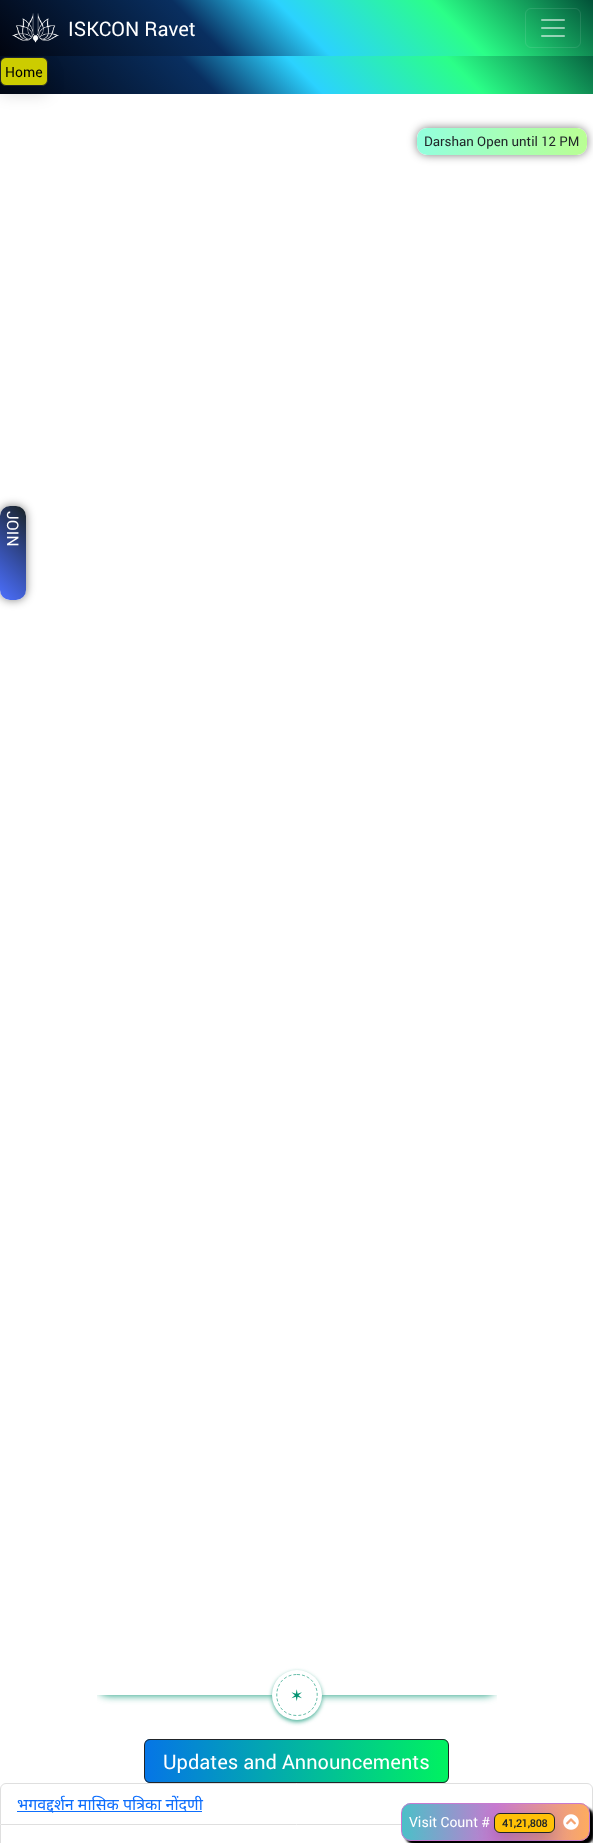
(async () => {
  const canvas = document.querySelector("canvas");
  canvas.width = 593;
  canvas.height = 1843;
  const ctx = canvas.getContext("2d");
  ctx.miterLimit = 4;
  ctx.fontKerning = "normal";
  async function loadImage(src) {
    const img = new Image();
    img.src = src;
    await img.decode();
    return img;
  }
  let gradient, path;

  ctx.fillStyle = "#ffffff";
  ctx.fillRect(0, 0, 593, 1843);
  gradient = ctx.createLinearGradient(130, 240, 463, -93);
  gradient.addColorStop(0, "#01040f");
  gradient.addColorStop(0.35, "#092f60");
  gradient.addColorStop(0.51, "#2bd2ff");
  gradient.addColorStop(0.75, "#2bff88");
  gradient.addColorStop(1, "#025138");
  ctx.fillStyle = gradient;
  ctx.fillRect(0, 56, 593, 38);
  ctx.fillStyle = "rgba(0, 0, 0, 0.15)";
  ctx.filter = "blur(8px)";
  ctx.beginPath();
  ctx.roundRect(0, 65, 48, 29, 6);
  ctx.fill();
  ctx.filter = "none";
  gradient = ctx.createLinearGradient(134, 190, 459, -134);
  gradient.addColorStop(0, "#01040f");
  gradient.addColorStop(0.35, "#092f60");
  gradient.addColorStop(0.51, "#2bd2ff");
  gradient.addColorStop(0.75, "#2bff88");
  gradient.addColorStop(1, "#025138");
  ctx.fillStyle = gradient;
  ctx.fillRect(0, 0, 593, 56);
  ctx.drawImage(await loadImage("img/1.png"), 12, 13, 47, 30);
  ctx.beginPath();
  ctx.roundRect(525.5, 8.5, 55, 39, 5.5);
  ctx.strokeStyle = "rgba(255, 255, 255, 0.1)";
  ctx.stroke();
  ctx.drawImage(await loadImage("img/2.png"), 541, 19, 24, 18);
  ctx.fillStyle = "#cccc00";
  ctx.beginPath();
  ctx.roundRect(0.5, 57.5, 47, 28, 5.5);
  ctx.fill();
  ctx.strokeStyle = "#212529";
  ctx.stroke();
  ctx.save();
  path = new Path2D("M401 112H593V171H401ZM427 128H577C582.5 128 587 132.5 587 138V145C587 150.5 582.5 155 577 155H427C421.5 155 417 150.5 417 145V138C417 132.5 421.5 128 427 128Z");
  ctx.clip(path, "evenodd");
  ctx.fillStyle = "rgba(0, 0, 0, 0.5)";
  ctx.filter = "blur(5px)";
  ctx.beginPath();
  ctx.roundRect(417, 128, 170, 27, 10);
  ctx.fill();
  ctx.filter = "none";
  ctx.restore();
  gradient = ctx.createLinearGradient(417, 142, 587, 142);
  gradient.addColorStop(0, "rgba(120, 255, 214, 0.8)");
  gradient.addColorStop(1, "rgba(168, 255, 120, 0.8)");
  ctx.fillStyle = gradient;
  ctx.beginPath();
  ctx.roundRect(417, 128, 170, 27, 10);
  ctx.fill();
  ctx.save();
  path = new Path2D("M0 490H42V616H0ZM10 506H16C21.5 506 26 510.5 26 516V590C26 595.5 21.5 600 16 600H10C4.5 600 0 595.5 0 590V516C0 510.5 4.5 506 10 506Z");
  ctx.clip(path, "evenodd");
  ctx.fillStyle = "rgba(0, 0, 0, 0.5)";
  ctx.filter = "blur(5px)";
  ctx.beginPath();
  ctx.roundRect(0, 506, 26, 94, 10);
  ctx.fill();
  ctx.filter = "none";
  ctx.restore();
  gradient = ctx.createLinearGradient(-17, 583, 43, 523);
  gradient.addColorStop(0, "rgba(0, 50, 250, 0.7)");
  gradient.addColorStop(1, "rgba(0, 10, 10, 0.9)");
  ctx.fillStyle = gradient;
  ctx.beginPath();
  ctx.roundRect(0, 506, 26, 94, 10);
  ctx.fill();
  ctx.save();
  ctx.beginPath();
  ctx.rect(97, 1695, 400, 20);
  ctx.clip();
  ctx.fillStyle = "#049372";
  ctx.filter = "blur(4px)";
  ctx.beginPath();
  ctx.roundRect(97, 1670, 400, 25, 12);
  ctx.fill();
  ctx.filter = "none";
  ctx.restore();
  ctx.fillStyle = "#4fb39c";
  ctx.filter = "blur(2px)";
  ctx.beginPath();
  ctx.roundRect(272, 1672, 50, 50, 25);
  ctx.fill();
  ctx.filter = "none";
  ctx.fillStyle = "#ffffff";
  ctx.beginPath();
  ctx.arc(297, 1695, 25, 0, Math.PI * 2);
  ctx.fill();
  path = new Path2D("M297 1674.5C324 1674.5 324 1715.5 297 1715.5C270 1715.5 270 1674.5 297 1674.5Z");
  ctx.strokeStyle = "#68beaa";
  ctx.setLineDash([3, 2]);
  ctx.stroke(path);
  ctx.save();
  ctx.beginPath();
  ctx.roundRect(144, 1739, 305, 44, 6);
  ctx.clip();
  gradient = ctx.createLinearGradient(145, 1761, 448, 1761);
  gradient.addColorStop(0, "#0575e6");
  gradient.addColorStop(1, "#00f260");
  ctx.fillStyle = gradient;
  ctx.fillRect(145, 1739, 303, 44);
  ctx.restore();
  ctx.beginPath();
  ctx.roundRect(144.5, 1739.5, 304, 43, 5.5);
  ctx.strokeStyle = "#212529";
  ctx.setLineDash([]);
  ctx.stroke();
  ctx.beginPath();
  ctx.roundRect(0.5, 1783.5, 592, 41, [5.5, 5.5, 0, 0]);
  ctx.strokeStyle = "#dfdfdf";
  ctx.stroke();
  ctx.fillStyle = "#0d6efd";
  ctx.fillRect(17, 1811, 185, 1);
  ctx.fillStyle = "#dfdfdf";
  path = new Path2D("M593 1825V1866L592 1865V1825Z");
  ctx.fill(path);
  path = new Path2D("M0 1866V1825H1V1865Z");
  ctx.fill(path);
  ctx.fillStyle = "#000000";
  ctx.filter = "blur(1px)";
  ctx.beginPath();
  ctx.roundRect(405, 1807, 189, 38, 10);
  ctx.fill();
  ctx.filter = "none";
  ctx.save();
  ctx.beginPath();
  ctx.roundRect(401, 1803, 189, 38, 10);
  ctx.clip();
  gradient = ctx.createLinearGradient(402, 1822, 589, 1822);
  gradient.addColorStop(0, "#4bc0c8");
  gradient.addColorStop(0.5, "#c779d0");
  gradient.addColorStop(1, "#feac5e");
  ctx.fillStyle = gradient;
  ctx.fillRect(402, 1803, 187, 38);
  ctx.restore();
  ctx.beginPath();
  ctx.roundRect(401.5, 1803.5, 188, 37, 9.5);
  ctx.strokeStyle = "#c779d0";
  ctx.stroke();
  ctx.fillStyle = "rgba(0, 0, 0, 0.15)";
  ctx.filter = "blur(8px)";
  ctx.beginPath();
  ctx.roundRect(494, 1821, 61, 20, 6);
  ctx.fill();
  ctx.filter = "none";
  ctx.fillStyle = "#ffc107";
  ctx.beginPath();
  ctx.roundRect(494.5, 1813.5, 60, 19, 5.5);
  ctx.fill();
  ctx.strokeStyle = "#212529";
  ctx.stroke();
  ctx.drawImage(await loadImage("img/3.png"), 563, 1814, 16, 16);
  ctx.font = "20px Roboto";
  ctx.fillStyle = "#ffffff";
  ctx.fillText("ISKCON Ravet", 68, 36);
  ctx.font = "14px Roboto";
  ctx.fillStyle = "#000000";
  ctx.fillText("Home", 5, 77);
  ctx.font = "13.25px Roboto";
  ctx.fillStyle = "#212529";
  ctx.fillText("Darshan Open until 12 PM", 424, 146);
  ctx.font = "16px Roboto";
  ctx.fillStyle = "#ffffff";
  ctx.save();
  ctx.translate(7, 511);
  ctx.rotate(90 * Math.PI / 180);
  ctx.fillText("JOIN", 0, 0);
  ctx.restore();
  ctx.font = "16px DejaVu Sans";
  ctx.fillStyle = "#049372";
  ctx.fillText("✶", 290, 1701);
  ctx.font = "20px Roboto";
  ctx.fillStyle = "#ffffff";
  ctx.fillText("Updates and Announcements", 163, 1769);
  ctx.font = "16px Noto Sans";
  ctx.fillStyle = "#0d6efd";
  ctx.fillText("भगवद्दर्शन मासिक पत्रिका नोंदणी", 17, 1810);
  ctx.font = "14px Roboto";
  ctx.fillStyle = "#ffffff";
  ctx.fillText("Visit Count #", 409, 1827);
  ctx.font = "bold 10.5px Roboto";
  ctx.fillStyle = "#212529";
  ctx.fillText("41,21,808", 502, 1827);
})();
